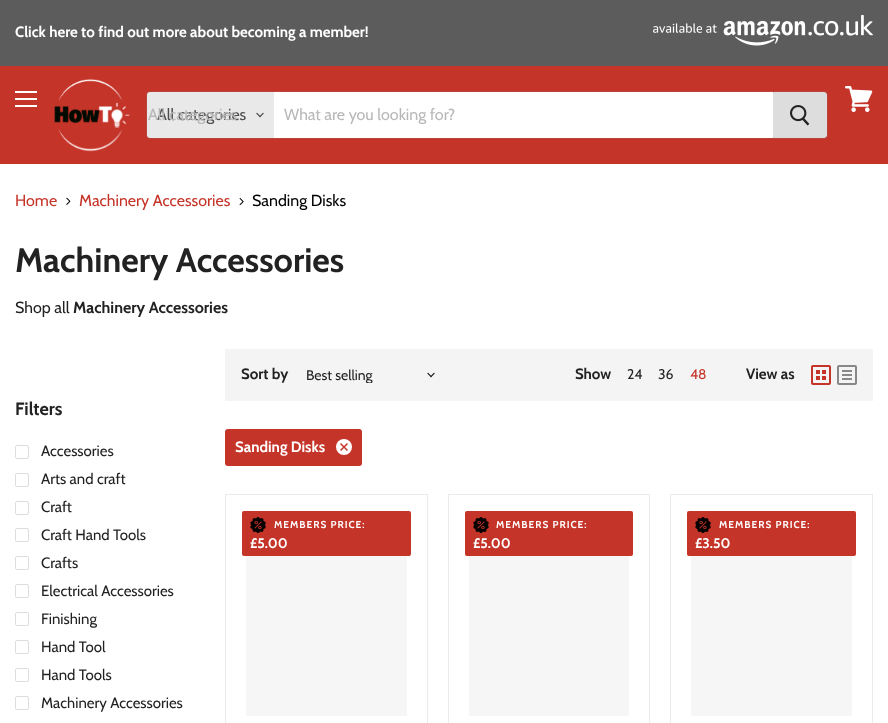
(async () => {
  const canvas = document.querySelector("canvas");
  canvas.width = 888;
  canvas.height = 723;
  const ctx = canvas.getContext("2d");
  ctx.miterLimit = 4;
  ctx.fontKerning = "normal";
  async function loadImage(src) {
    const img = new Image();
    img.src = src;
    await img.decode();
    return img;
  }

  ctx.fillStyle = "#ffffff";
  ctx.fillRect(0, 0, 888, 723);
  ctx.fillStyle = "#5c5c5c";
  ctx.fillRect(0, 0, 888, 66);
  ctx.drawImage(await loadImage("img/1.png"), 653, 15, 220, 31);
  for (const [x, y, w, h, color] of [
    [0, 66, 888, 98, "#c53429"],
    [15, 91, 22, 2, "#ffffff"],
    [15, 98, 22, 2, "#ffffff"],
    [15, 105, 22, 2, "#ffffff"],
  ]) {
    ctx.fillStyle = color;
    ctx.fillRect(x, y, w, h);
  }
  ctx.drawImage(await loadImage("img/2.png"), 845, 86, 28, 26);
  ctx.drawImage(await loadImage("img/3.png"), 54, 79, 76, 73);
  ctx.beginPath();
  ctx.roundRect(146.5, 91.5, 681, 47, 3.5);
  ctx.strokeStyle = "rgba(128, 128, 128, 0.2)";
  ctx.stroke();
  ctx.fillStyle = "#e9e9e9";
  ctx.beginPath();
  ctx.roundRect(147, 92, 127, 46, [3, 0, 0, 3]);
  ctx.fill();
  ctx.drawImage(await loadImage("img/4.png"), 256, 112, 8, 6);
  ctx.fillStyle = "#ffffff";
  ctx.fillRect(274, 92, 499, 46);
  ctx.fillStyle = "#dddddd";
  ctx.beginPath();
  ctx.roundRect(773.5, 92.5, 53, 45, [0, 2.5, 2.5, 0]);
  ctx.fill();
  ctx.strokeStyle = "#dddddd";
  ctx.stroke();
  ctx.drawImage(await loadImage("img/5.png"), 790, 105, 20, 21);
  ctx.drawImage(await loadImage("img/6.png"), 66, 197, 5, 8);
  ctx.drawImage(await loadImage("img/7.png"), 239, 198, 5, 7);
  ctx.beginPath();
  ctx.roundRect(15.5, 445.5, 13, 13, 1.5);
  ctx.stroke();
  ctx.beginPath();
  ctx.roundRect(15.5, 473.5, 13, 13, 1.5);
  ctx.stroke();
  ctx.beginPath();
  ctx.roundRect(15.5, 501.5, 13, 13, 1.5);
  ctx.stroke();
  ctx.beginPath();
  ctx.roundRect(15.5, 528.5, 13, 13, 1.5);
  ctx.stroke();
  ctx.beginPath();
  ctx.roundRect(15.5, 556.5, 13, 13, 1.5);
  ctx.stroke();
  ctx.beginPath();
  ctx.roundRect(15.5, 584.5, 13, 13, 1.5);
  ctx.stroke();
  ctx.beginPath();
  ctx.roundRect(15.5, 612.5, 13, 13, 1.5);
  ctx.stroke();
  ctx.beginPath();
  ctx.roundRect(15.5, 640.5, 13, 13, 1.5);
  ctx.stroke();
  ctx.beginPath();
  ctx.roundRect(15.5, 668.5, 13, 13, 1.5);
  ctx.stroke();
  ctx.beginPath();
  ctx.roundRect(15.5, 696.5, 13, 13, 1.5);
  ctx.stroke();
  ctx.fillStyle = "#f4f4f4";
  ctx.fillRect(225, 349, 648, 52);
  ctx.drawImage(await loadImage("img/8.png"), 427, 372, 8, 6);
  ctx.drawImage(await loadImage("img/9.png"), 811, 365, 20, 20);
  ctx.drawImage(await loadImage("img/10.png"), 837, 365, 20, 20);
  ctx.fillStyle = "#c53429";
  ctx.beginPath();
  ctx.roundRect(225, 429, 137, 37, 3);
  ctx.fill();
  ctx.fillStyle = "#ffffff";
  ctx.beginPath();
  ctx.arc(344, 447, 8, 0, Math.PI * 2);
  ctx.fill();
  ctx.drawImage(await loadImage("img/11.png"), 340, 443, 8, 8);
  ctx.strokeStyle = "#ebebeb";
  ctx.strokeRect(225.5, 494.5, 202, 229);
  ctx.fillStyle = "#c53429";
  ctx.beginPath();
  ctx.roundRect(242, 511, 169, 45, 2);
  ctx.fill();
  ctx.drawImage(await loadImage("img/12.png"), 250, 517, 16, 16);
  ctx.fillStyle = "#f6f6f6";
  ctx.fillRect(246, 556, 161, 160);
  ctx.strokeRect(448.5, 494.5, 201, 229);
  ctx.fillStyle = "#c53429";
  ctx.beginPath();
  ctx.roundRect(465, 511, 168, 45, 2);
  ctx.fill();
  ctx.drawImage(await loadImage("img/12.png"), 473, 517, 16, 16);
  ctx.fillStyle = "#f6f6f6";
  ctx.fillRect(469, 556, 160, 160);
  ctx.strokeRect(670.5, 494.5, 202, 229);
  ctx.fillStyle = "#c53429";
  ctx.beginPath();
  ctx.roundRect(687, 511, 169, 45, 2);
  ctx.fill();
  ctx.drawImage(await loadImage("img/12.png"), 695, 517, 16, 16);
  ctx.fillStyle = "#f6f6f6";
  ctx.fillRect(691, 556, 161, 160);
  ctx.font = "bold 15px Cabin";
  ctx.fillStyle = "#ffffff";
  ctx.fillText("Click here to find out more about becoming a member!", 15, 37);
  ctx.font = "16px Cabin";
  ctx.fillStyle = "#4d4d4d";
  ctx.fillText("All categories", 157, 120);
  ctx.fillStyle = "#b8b8b8";
  ctx.fillText("All categories", 148, 120);
  ctx.fillText("What are you looking for?", 284, 120);
  ctx.fillStyle = "#c53429";
  ctx.fillText("Home", 15, 206);
  ctx.fillText("Machinery Accessories", 79, 206);
  ctx.fillStyle = "#000000";
  ctx.fillText("Sanding Disks", 252, 206);
  ctx.font = "bold 34px Cabin";
  ctx.fillStyle = "#222222";
  ctx.fillText("Machinery Accessories", 15, 272);
  ctx.font = "16px Cabin";
  ctx.fillText("Shop all", 15, 313);
  ctx.font = "bold 16px Cabin";
  ctx.fillText("Machinery Accessories", 73, 313);
  ctx.font = "bold 18px Cabin";
  ctx.fillText("Filters", 15, 415);
  ctx.font = "15px Cabin";
  for (const [text, x, y] of [
    ["Accessories", 41, 456],
    ["Arts and craft", 41, 484],
    ["Craft", 41, 512],
    ["Craft Hand Tools", 41, 540],
    ["Crafts", 41, 568],
    ["Electrical Accessories", 41, 596],
    ["Finishing", 41, 624],
    ["Hand Tool", 41, 652],
    ["Hand Tools", 41, 680],
    ["Machinery Accessories", 41, 708],
  ]) {
    ctx.fillText(text, x, y);
  }
  ctx.font = "bold 15px Cabin";
  ctx.fillText("Sort by", 241, 379);
  ctx.save();
  ctx.beginPath();
  ctx.rect(306, 367, 111, 16);
  ctx.clip();
  ctx.font = "14px Cabin";
  ctx.fillText("Best selling", 306, 380);
  ctx.restore();
  ctx.fillText("Show", 575, 379);
  ctx.font = "14px Cabin";
  ctx.fillText("24", 627, 379);
  ctx.fillText("36", 658, 379);
  ctx.fillStyle = "#c53429";
  ctx.fillText("48", 690, 379);
  ctx.font = "bold 15px Cabin";
  ctx.fillStyle = "#222222";
  ctx.fillText("View as", 746, 379);
  ctx.fillStyle = "#ffffff";
  ctx.fillText("Sanding Disks", 235, 452);
  ctx.letterSpacing = "1px";
  ctx.font = "bold 10px Cabin";
  ctx.fillText("MEMBERS PRICE:", 274, 528);
  ctx.letterSpacing = "0px";
  ctx.font = "bold 14px Cabin";
  ctx.fillText("£5.00", 250, 548);
  ctx.letterSpacing = "1px";
  ctx.font = "bold 10px Cabin";
  ctx.fillText("MEMBERS PRICE:", 496, 528);
  ctx.letterSpacing = "0px";
  ctx.font = "bold 14px Cabin";
  ctx.fillText("£5.00", 473, 548);
  ctx.letterSpacing = "1px";
  ctx.font = "bold 10px Cabin";
  ctx.fillText("MEMBERS PRICE:", 719, 528);
  ctx.letterSpacing = "0px";
  ctx.font = "bold 14px Cabin";
  ctx.fillText("£3.50", 695, 548);
})();
